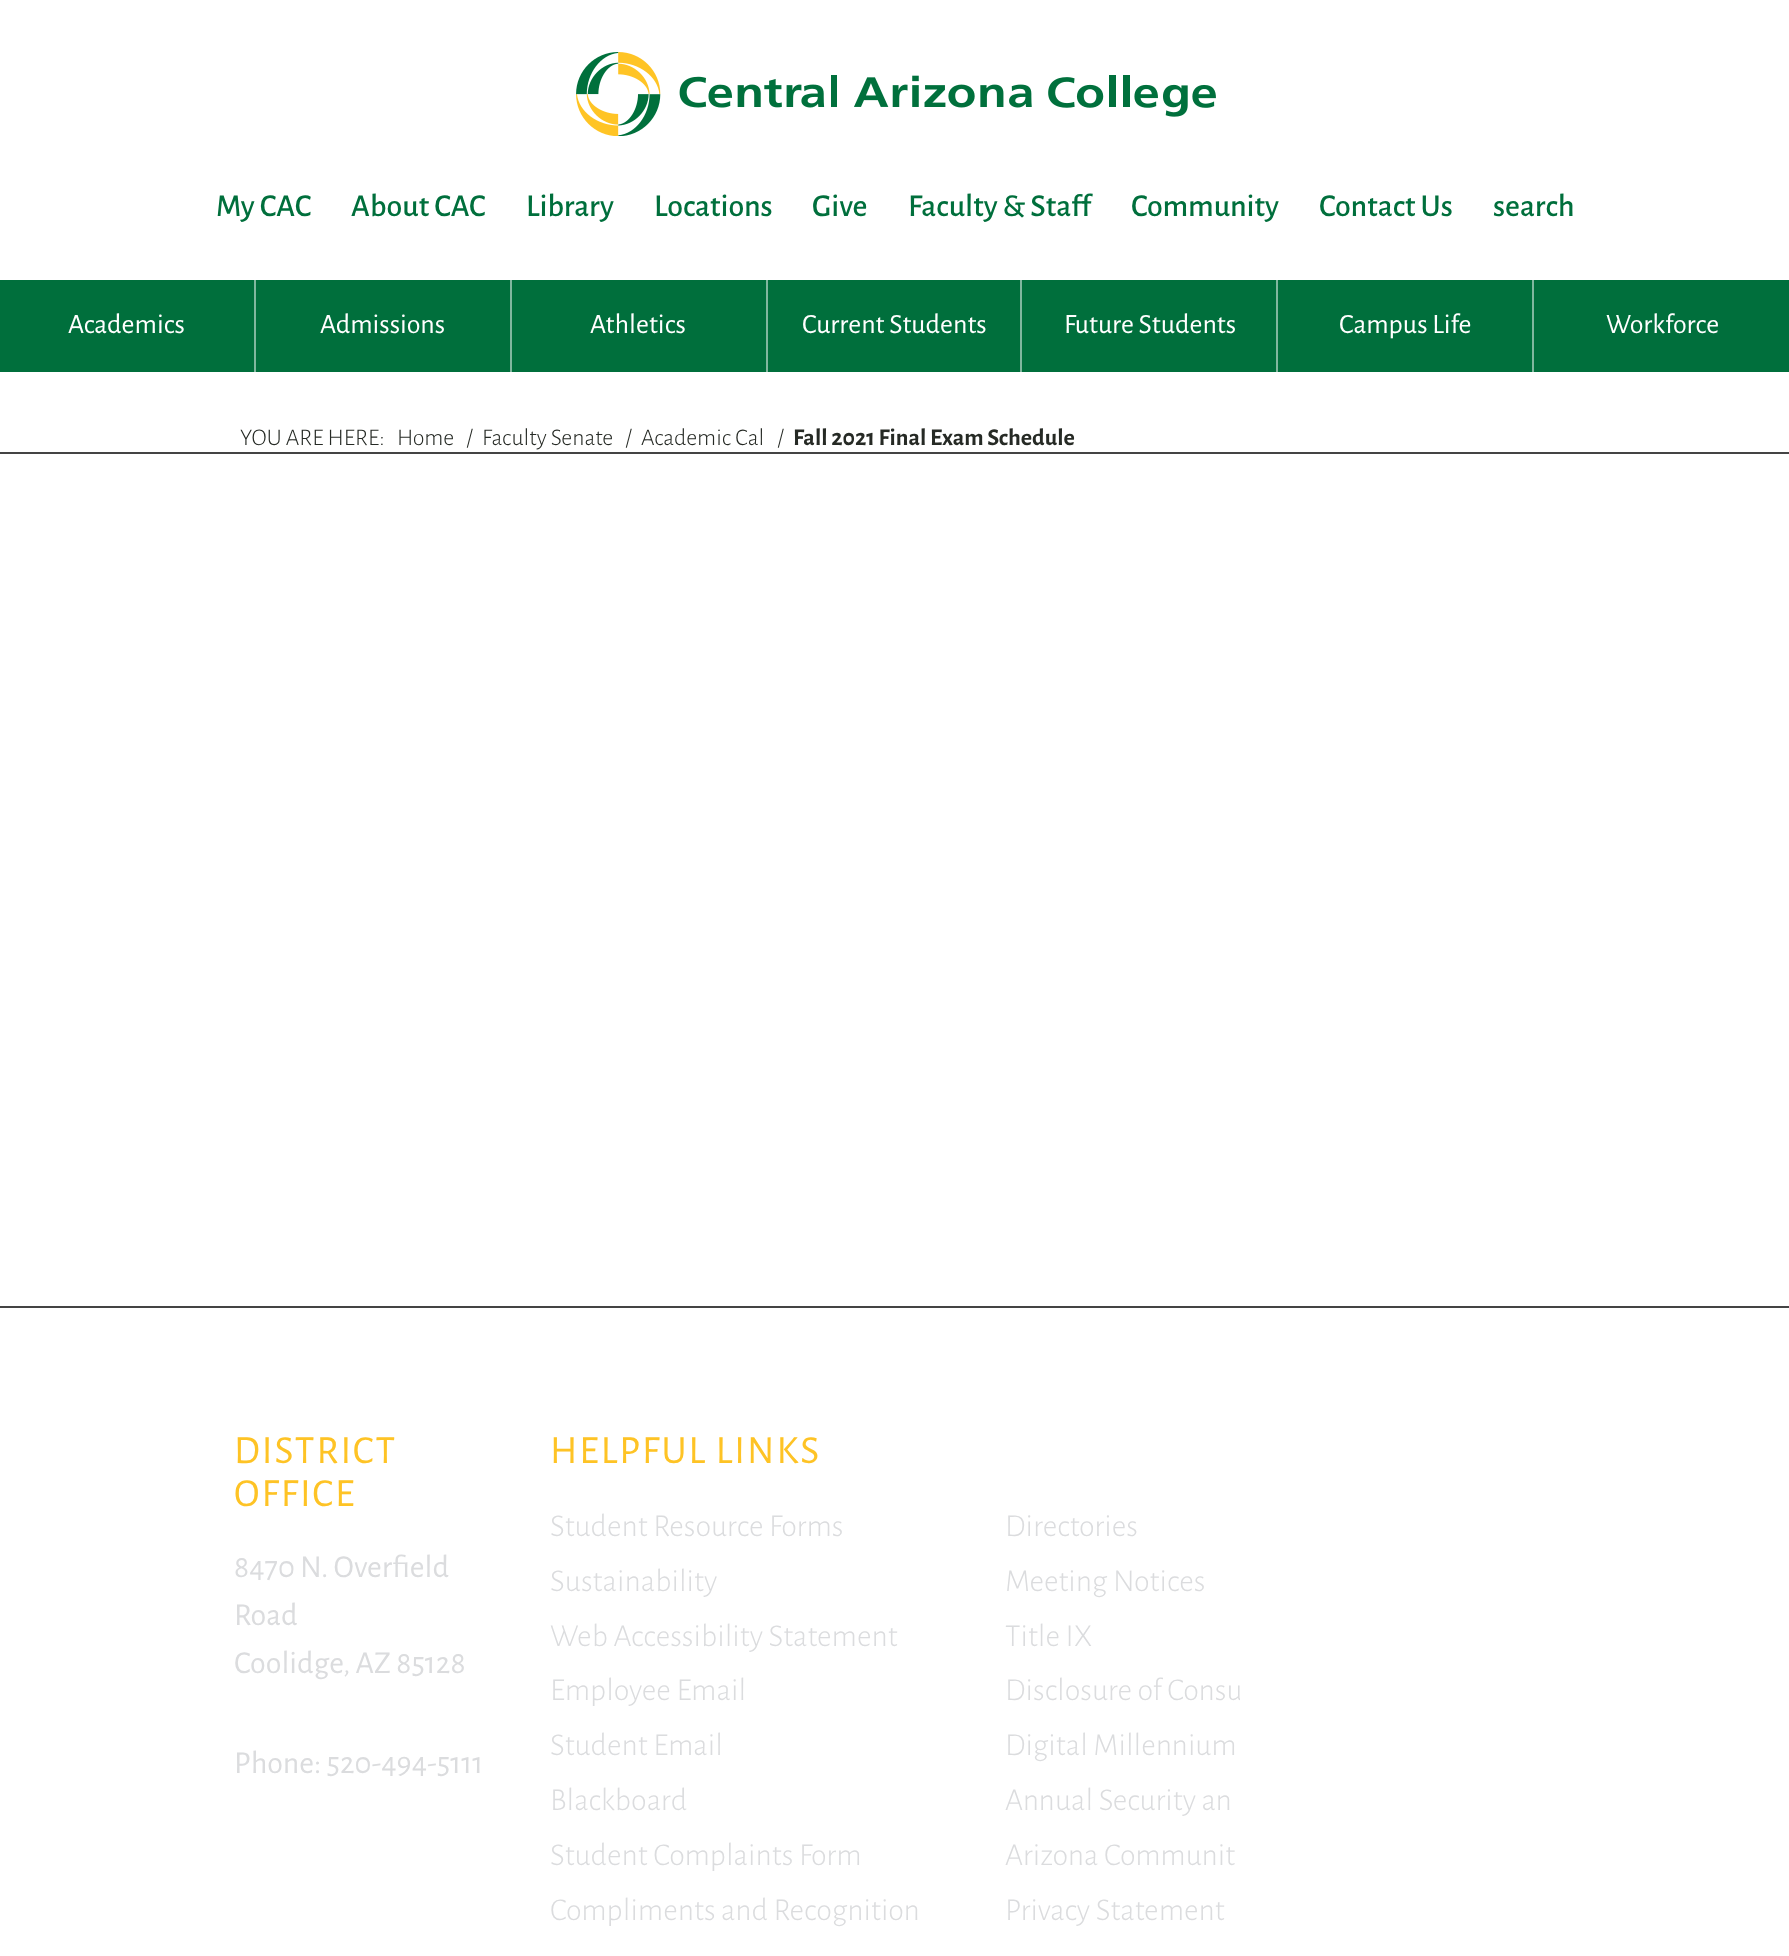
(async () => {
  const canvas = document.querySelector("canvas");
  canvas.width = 1789;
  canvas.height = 1956;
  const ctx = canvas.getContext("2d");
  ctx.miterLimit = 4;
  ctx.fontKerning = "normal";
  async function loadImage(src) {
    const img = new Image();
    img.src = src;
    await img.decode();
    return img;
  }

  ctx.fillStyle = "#ffffff";
  ctx.fillRect(0, 0, 1789, 1956);
  ctx.drawImage(await loadImage("img/1.png"), 576, 52, 640, 84);
  for (const [x, y, w, h, color] of [
    [0, 280, 254, 92, "#006f3c"],
    [254, 280, 2, 92, "#80b79e"],
    [256, 280, 254, 92, "#006f3c"],
    [510, 280, 2, 92, "#80b79e"],
    [512, 280, 254, 92, "#006f3c"],
    [766, 280, 2, 92, "#80b79e"],
    [768, 280, 252, 92, "#006f3c"],
    [1020, 280, 2, 92, "#80b79e"],
    [1022, 280, 254, 92, "#006f3c"],
    [1276, 280, 2, 92, "#80b79e"],
    [1278, 280, 254, 92, "#006f3c"],
    [1532, 280, 2, 92, "#80b79e"],
    [1534, 280, 255, 92, "#006f3c"],
    [0, 452, 1789, 2, "#444444"],
    [0, 1306, 1789, 2, "#444444"],
  ]) {
    ctx.fillStyle = color;
    ctx.fillRect(x, y, w, h);
  }
  ctx.font = "500 32px Alegreya Sans";
  ctx.fillStyle = "#006f3c";
  for (const [text, x, y] of [
    ["My CAC", 216, 216],
    ["About CAC", 351, 216],
    ["Library", 526, 216],
    ["Locations", 654, 216],
    ["Give", 812, 216],
    ["Faculty & Staff", 908, 216],
    ["Community", 1131, 216],
    ["Contact Us", 1319, 216],
    ["search", 1493, 216],
  ]) {
    ctx.fillText(text, x, y);
  }
  ctx.font = "28px Alegreya Sans";
  ctx.fillStyle = "#ffffff";
  for (const [text, x, y] of [
    ["Academics", 68, 333],
    ["Admissions", 320, 333],
    ["Athletics", 590, 333],
    ["Current Students", 802, 333],
    ["Future Students", 1064, 333],
    ["Campus Life", 1339, 333],
    ["Workforce", 1606, 333],
  ]) {
    ctx.fillText(text, x, y);
  }
  ctx.font = "300 24px Alegreya Sans";
  ctx.fillStyle = "#262a25";
  for (const [text, x, y] of [
    ["YOU ARE HERE:", 240, 445],
    ["Home", 397, 445],
    ["/", 466, 445],
    ["Faculty Senate", 482, 445],
    ["/", 625, 445],
    ["Academic Cal", 641, 445],
    ["/", 777, 445],
  ]) {
    ctx.fillText(text, x, y);
  }
  ctx.font = "bold 24px Alegreya Sans";
  ctx.fillText("Fall 2021 Final Exam Schedule", 793, 445);
  ctx.letterSpacing = "2px";
  ctx.font = "40px Alegreya Sans";
  ctx.fillStyle = "#fec325";
  ctx.fillText("DISTRICT", 234, 1463);
  ctx.fillText("OFFICE", 234, 1506);
  ctx.letterSpacing = "0px";
  ctx.font = "32px Alegreya Sans";
  ctx.fillStyle = "#dbdcde";
  for (const [text, x, y] of [
    ["8470 N. Overfield", 234, 1577],
    ["Road", 234, 1625],
    ["Coolidge, AZ 85128", 234, 1673],
    ["Phone: 520-494-5111", 234, 1773],
  ]) {
    ctx.fillText(text, x, y);
  }
  ctx.letterSpacing = "2px";
  ctx.font = "40px Alegreya Sans";
  ctx.fillStyle = "#fec325";
  ctx.fillText("HELPFUL LINKS", 550, 1463);
  ctx.letterSpacing = "0px";
  ctx.font = "300 32px Alegreya Sans";
  ctx.fillStyle = "#dbdcde";
  for (const [text, x, y] of [
    ["Student Resource Forms", 550, 1536],
    ["Directories", 1005, 1536],
    ["Sustainability", 550, 1591],
    ["Meeting Notices", 1005, 1591],
    ["Web Accessibility Statement", 550, 1646],
    ["Title IX", 1005, 1646],
    ["Employee Email", 550, 1700],
  ]) {
    ctx.fillText(text, x, y);
  }
  ctx.save();
  ctx.beginPath();
  ctx.rect(550, 1398, 690, 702);
  ctx.clip();
  ctx.fillText("Disclosure of Consu", 1005, 1700);
  ctx.restore();
  for (const [text, x, y] of [
    ["Student Email", 550, 1755],
    ["Digital Millennium", 1005, 1755],
    ["Blackboard", 550, 1810],
    ["Annual Security an", 1005, 1810],
    ["Student Complaints Form", 550, 1865],
    ["Arizona Communit", 1005, 1865],
    ["Compliments and Recognition", 550, 1920],
    ["Privacy Statement", 1005, 1920],
  ]) {
    ctx.fillText(text, x, y);
  }
})();
